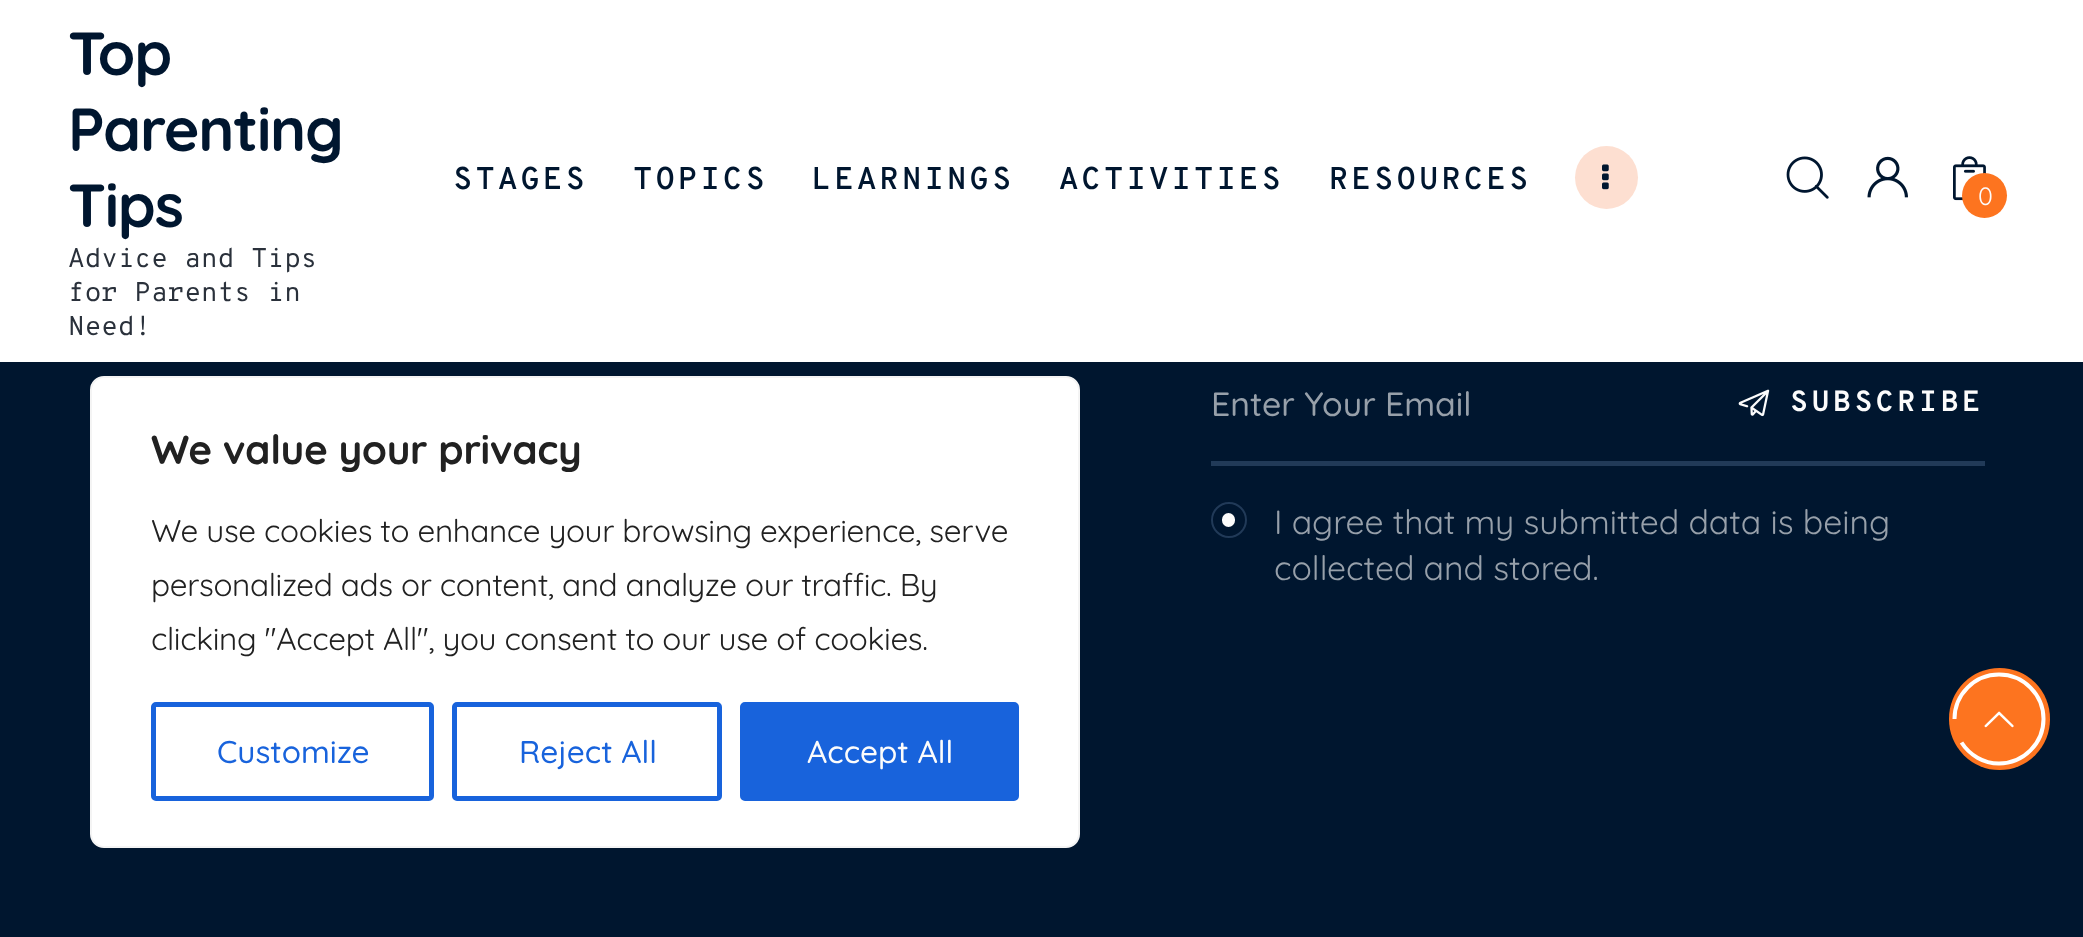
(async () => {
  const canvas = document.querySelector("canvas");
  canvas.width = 2083;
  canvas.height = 937;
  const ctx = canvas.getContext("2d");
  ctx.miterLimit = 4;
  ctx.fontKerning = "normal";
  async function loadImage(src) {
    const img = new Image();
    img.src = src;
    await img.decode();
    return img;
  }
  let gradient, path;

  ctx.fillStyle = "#00162f";
  ctx.fillRect(0, 0, 2083, 937);
  ctx.fillStyle = "#ffffff";
  ctx.fillRect(0, 0, 2083, 362);
  ctx.fillStyle = "#fddfd1";
  ctx.beginPath();
  ctx.arc(1606.5, 177.5, 31.5, 0, Math.PI * 2);
  ctx.fill();
  ctx.drawImage(await loadImage("img/1.png"), 1602, 164, 7, 26);
  ctx.drawImage(await loadImage("img/2.png"), 1786, 156, 43, 43);
  ctx.drawImage(await loadImage("img/3.png"), 1867, 156, 41, 42);
  ctx.drawImage(await loadImage("img/4.png"), 1953, 156, 33, 45);
  ctx.fillStyle = "#fd741f";
  ctx.beginPath();
  ctx.arc(1984.5, 195.5, 22.5, 0, Math.PI * 2);
  ctx.fill();
  ctx.fillStyle = "#213a58";
  ctx.fillRect(1211, 461, 774, 5);
  ctx.drawImage(await loadImage("img/5.png"), 1738, 389, 32, 28);
  ctx.save();
  ctx.beginPath();
  ctx.roundRect(1211, 502, 36, 36, 18);
  ctx.clip();
  gradient = ctx.createRadialGradient(1229, 520, 0, 1229, 520, 22);
  gradient.addColorStop(0.5, "#fcfcfc");
  gradient.addColorStop(0.5, "#00162f");
  ctx.fillStyle = gradient;
  ctx.fillRect(1213, 504, 31, 32);
  ctx.restore();
  ctx.beginPath();
  ctx.roundRect(1217.5, 508.5, 22, 23, 11);
  ctx.strokeStyle = "#00162f";
  ctx.lineWidth = 9;
  ctx.stroke();
  ctx.beginPath();
  ctx.arc(1229, 520, 17, 0, Math.PI * 2);
  ctx.strokeStyle = "#213a58";
  ctx.lineWidth = 2;
  ctx.stroke();
  ctx.fillStyle = "#ffffff";
  ctx.beginPath();
  ctx.roundRect(91, 377, 988, 470, 13);
  ctx.fill();
  ctx.strokeStyle = "#f4f4f4";
  ctx.stroke();
  ctx.beginPath();
  ctx.roundRect(153.5, 704.5, 278, 94, 2.5);
  ctx.strokeStyle = "#1863dc";
  ctx.lineWidth = 5;
  ctx.stroke();
  ctx.beginPath();
  ctx.roundRect(454.5, 704.5, 265, 94, 2.5);
  ctx.stroke();
  ctx.fillStyle = "#1863dc";
  ctx.beginPath();
  ctx.roundRect(742.5, 704.5, 274, 94, 2.5);
  ctx.fill();
  ctx.stroke();
  ctx.fillStyle = "#fd741f";
  ctx.beginPath();
  ctx.roundRect(1949, 668, 101, 102, 50.5);
  ctx.fill();
  path = new Path2D("M1954.5 719C1954.5 694.5 1974.5 674.5 1999 674.5C2023.5 674.5 2043.5 694.5 2043.5 719C2043.5 743.5 2023.5 763.5 1999 763.5C1983.5 763.5 1969.5 755 1961.5 742.5");
  ctx.strokeStyle = "#ffffff";
  ctx.lineWidth = 4;
  ctx.stroke(path);
  ctx.drawImage(await loadImage("img/6.png"), 1984, 711, 30, 17);
  ctx.letterSpacing = "-1.25px";
  ctx.font = "bold 60.75px Quicksand";
  ctx.fillStyle = "#00162f";
  for (const [text, x, y] of [
    ["Top", 68, 75],
    ["Parenting", 68, 151],
    ["Tips", 68, 227],
  ]) {
    ctx.fillText(text, x, y);
  }
  ctx.letterSpacing = "0px";
  ctx.font = "27px Overpass Mono";
  ctx.fillStyle = "#2a313b";
  for (const [text, x, y] of [
    ["Advice and Tips", 68, 267],
    ["for Parents in", 68, 301],
    ["Need!", 68, 335],
  ]) {
    ctx.fillText(text, x, y);
  }
  ctx.letterSpacing = "3.1px";
  ctx.font = "600 31.5px Overpass Mono";
  ctx.fillStyle = "#00162f";
  for (const [text, x, y] of [
    ["STAGES", 453, 189],
    ["TOPICS", 633, 189],
    ["LEARNINGS", 812, 189],
    ["ACTIVITIES", 1059, 189],
    ["RESOURCES", 1329, 189],
  ]) {
    ctx.fillText(text, x, y);
  }
  ctx.letterSpacing = "0px";
  ctx.font = "300 25px Quicksand";
  ctx.fillStyle = "#fcfcfc";
  ctx.fillText("0", 1978, 205);
  ctx.font = "500 33.75px Quicksand";
  ctx.fillStyle = "#97a0aa";
  ctx.fillText("Enter Your Email", 1211, 416);
  ctx.letterSpacing = "3.5px";
  ctx.font = "bold 29.25px Overpass Mono";
  ctx.fillStyle = "#fcfcfc";
  ctx.fillText("SUBSCRIBE", 1790, 411);
  ctx.letterSpacing = "0px";
  ctx.font = "300 33.75px Quicksand";
  ctx.fillStyle = "#97a0aa";
  ctx.fillText("I agree that my submitted data is being", 1274, 534);
  ctx.fillText("collected and stored.", 1274, 580);
  ctx.letterSpacing = "-0.35px";
  ctx.font = "bold 40.5px Quicksand";
  ctx.fillStyle = "#212121";
  ctx.fillText("We value your privacy", 151, 464);
  ctx.font = "300 31.5px Quicksand";
  for (const [text, x, y] of [
    ["We use cookies to enhance your browsing experience, serve", 151, 542],
    ["personalized ads or content, and analyze our traffic. By", 151, 596],
    ["clicking \"Accept All\", you consent to our use of cookies.", 151, 650],
  ]) {
    ctx.fillText(text, x, y);
  }
  ctx.letterSpacing = "0px";
  ctx.font = "500 31.5px Quicksand";
  ctx.fillStyle = "#1863dc";
  ctx.fillText("Customize", 217, 763);
  ctx.fillText("Reject All", 519, 763);
  ctx.fillStyle = "#fcfcfc";
  ctx.fillText("Accept All", 807, 763);
})();
